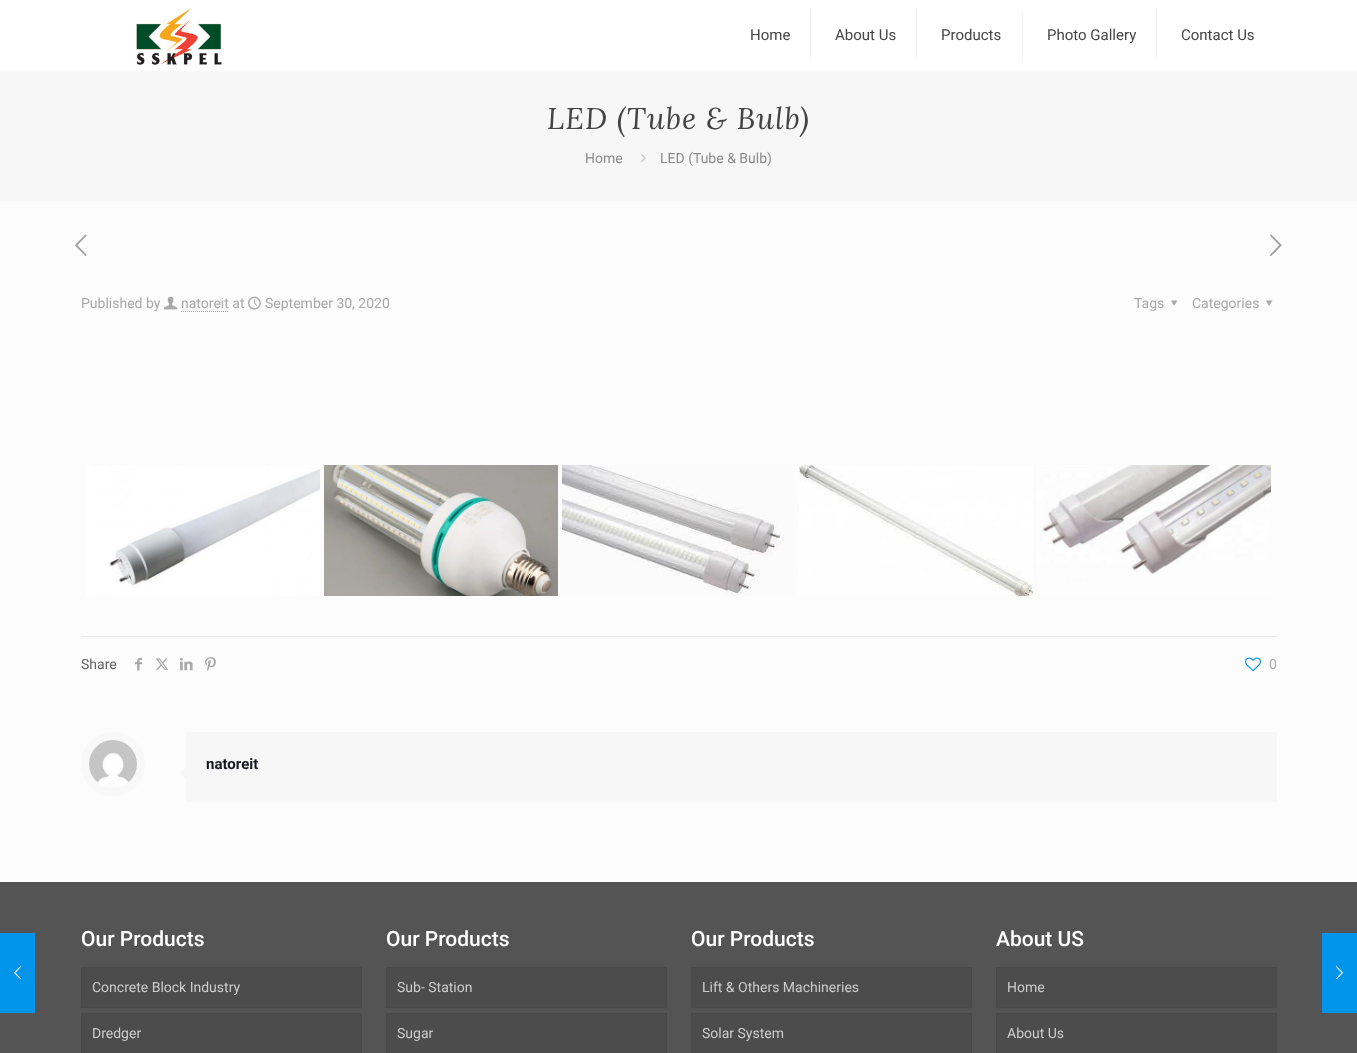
(async () => {
  const canvas = document.querySelector("canvas");
  canvas.width = 1357;
  canvas.height = 1053;
  const ctx = canvas.getContext("2d");
  ctx.miterLimit = 4;
  ctx.fontKerning = "normal";
  async function loadImage(src) {
    const img = new Image();
    img.src = src;
    await img.decode();
    return img;
  }
  let path;

  ctx.fillStyle = "#fcfcfc";
  ctx.fillRect(0, 0, 1357, 1053);
  ctx.fillStyle = "#545454";
  ctx.fillRect(0, 882, 1357, 171);
  ctx.fillStyle = "#0095eb";
  ctx.fillRect(0, 933, 35, 80);
  ctx.drawImage(await loadImage("img/1.png"), 14, 966, 7, 14);
  ctx.fillStyle = "#ffffff";
  ctx.fillRect(0, 0, 1357, 71);
  ctx.drawImage(await loadImage("img/2.png"), 136, 8, 86, 57);
  for (const [x, y, w, h, color] of [
    [810, 10, 1, 50, "#f2f2f2"],
    [916, 10, 1, 50, "#f2f2f2"],
    [1022, 10, 1, 50, "#f2f2f2"],
    [1156, 10, 1, 50, "#f2f2f2"],
    [0, 71, 1357, 130, "#f7f7f7"],
  ]) {
    ctx.fillStyle = color;
    ctx.fillRect(x, y, w, h);
  }
  ctx.drawImage(await loadImage("img/3.png"), 641, 154, 5, 8);
  ctx.drawImage(await loadImage("img/4.png"), 75, 234, 12, 22);
  ctx.drawImage(await loadImage("img/5.png"), 1270, 234, 12, 22);
  ctx.drawImage(await loadImage("img/6.png"), 164, 296, 14, 14);
  path = new Path2D("M181 311.5H229");
  ctx.strokeStyle = "#a8a8a8";
  ctx.setLineDash([1, 1]);
  ctx.stroke(path);
  ctx.drawImage(await loadImage("img/7.png"), 248, 296, 13, 14);
  ctx.fillStyle = "#a8a8a8";
  path = new Path2D("M1177.5 300.5L1174 306L1171 300.5Z");
  ctx.fill(path);
  path = new Path2D("M1272.5 300.5L1269 306L1266 300.5Z");
  ctx.fill(path);
  ctx.drawImage(await loadImage("img/8.png"), 86, 465, 234, 131);
  ctx.drawImage(await loadImage("img/9.png"), 324, 465, 234, 131);
  ctx.drawImage(await loadImage("img/10.png"), 562, 465, 233, 131);
  ctx.drawImage(await loadImage("img/11.png"), 799, 465, 234, 131);
  ctx.drawImage(await loadImage("img/12.png"), 1037, 465, 234, 131);
  ctx.fillStyle = "#e8e8e8";
  ctx.fillRect(81, 636, 1196, 1);
  ctx.drawImage(await loadImage("img/13.png"), 135, 657, 7, 14);
  ctx.drawImage(await loadImage("img/14.png"), 155, 658, 14, 12);
  ctx.drawImage(await loadImage("img/15.png"), 180, 657, 13, 14);
  ctx.drawImage(await loadImage("img/16.png"), 205, 657, 11, 14);
  ctx.drawImage(await loadImage("img/17.png"), 1245, 657, 16, 15);
  ctx.beginPath();
  ctx.arc(113, 764, 28, 0, Math.PI * 2);
  ctx.strokeStyle = "#f8f8f8";
  ctx.lineWidth = 8;
  ctx.setLineDash([]);
  ctx.stroke();
  ctx.drawImage(await loadImage("img/18.png"), 89, 740, 48, 43);
  ctx.fillStyle = "#f7f7f7";
  ctx.fillRect(186, 732, 1091, 70);
  path = new Path2D("M186 767V779L180 773Z");
  ctx.fill(path);
  ctx.fillStyle = "#4c4c4c";
  ctx.beginPath();
  ctx.rect(81.5, 967.5, 280, 40);
  ctx.fill();
  ctx.strokeStyle = "#494949";
  ctx.lineWidth = 1;
  ctx.stroke();
  ctx.beginPath();
  ctx.rect(81.5, 1013.5, 280, 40);
  ctx.fill();
  ctx.stroke();
  ctx.beginPath();
  ctx.rect(386.5, 967.5, 280, 40);
  ctx.fill();
  ctx.stroke();
  ctx.beginPath();
  ctx.rect(386.5, 1013.5, 280, 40);
  ctx.fill();
  ctx.stroke();
  ctx.beginPath();
  ctx.rect(691.5, 967.5, 280, 40);
  ctx.fill();
  ctx.stroke();
  ctx.beginPath();
  ctx.rect(691.5, 1013.5, 280, 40);
  ctx.fill();
  ctx.stroke();
  ctx.beginPath();
  ctx.rect(996.5, 967.5, 280, 40);
  ctx.fill();
  ctx.stroke();
  ctx.beginPath();
  ctx.rect(996.5, 1013.5, 280, 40);
  ctx.fill();
  ctx.stroke();
  ctx.fillStyle = "#0095eb";
  ctx.fillRect(1322, 933, 35, 80);
  ctx.drawImage(await loadImage("img/19.png"), 1336, 966, 7, 14);
  ctx.font = "15px Roboto";
  ctx.fillStyle = "#444444";
  for (const [text, x, y] of [
    ["Home", 750, 40],
    ["About Us", 835, 40],
    ["Products", 941, 40],
    ["Photo Gallery", 1047, 40],
    ["Contact Us", 1181, 40],
  ]) {
    ctx.fillText(text, x, y);
  }
  ctx.letterSpacing = "1px";
  ctx.font = "italic 30px Lora";
  ctx.fillText("LED (Tube & Bulb)", 547, 129);
  ctx.letterSpacing = "0px";
  ctx.font = "14px Roboto";
  ctx.fillStyle = "#8c8c8c";
  ctx.fillText("Home", 585, 163);
  ctx.fillText("LED (Tube & Bulb)", 660, 163);
  ctx.fillStyle = "#a8a8a8";
  for (const [text, x, y] of [
    ["Published by", 81, 308],
    ["natoreit at", 181, 308],
    ["September 30, 2020", 265, 308],
    ["Tags", 1134, 308],
    ["Categories", 1192, 308],
  ]) {
    ctx.fillText(text, x, y);
  }
  ctx.fillStyle = "#626262";
  ctx.fillText("Share", 81, 669);
  ctx.fillStyle = "#a8a8a8";
  ctx.fillText("0", 1269, 669);
  ctx.font = "bold 15px Roboto";
  ctx.fillStyle = "#161922";
  ctx.fillText("natoreit", 206, 769);
  ctx.font = "500 21px Roboto";
  ctx.fillStyle = "#ffffff";
  ctx.fillText("Our Products", 81, 946);
  ctx.font = "14px Roboto";
  ctx.fillStyle = "#cccccc";
  ctx.fillText("Concrete Block Industry", 92, 992);
  ctx.fillText("Dredger", 92, 1038);
  ctx.font = "500 21px Roboto";
  ctx.fillStyle = "#ffffff";
  ctx.fillText("Our Products", 386, 946);
  ctx.font = "14px Roboto";
  ctx.fillStyle = "#cccccc";
  ctx.fillText("Sub- Station", 397, 992);
  ctx.fillText("Sugar", 397, 1038);
  ctx.font = "500 21px Roboto";
  ctx.fillStyle = "#ffffff";
  ctx.fillText("Our Products", 691, 946);
  ctx.font = "14px Roboto";
  ctx.fillStyle = "#cccccc";
  ctx.fillText("Lift & Others Machineries", 702, 992);
  ctx.fillText("Solar System", 702, 1038);
  ctx.font = "500 21px Roboto";
  ctx.fillStyle = "#ffffff";
  ctx.fillText("About US", 996, 946);
  ctx.font = "14px Roboto";
  ctx.fillStyle = "#cccccc";
  ctx.fillText("Home", 1007, 992);
  ctx.fillText("About Us", 1007, 1038);
})();
